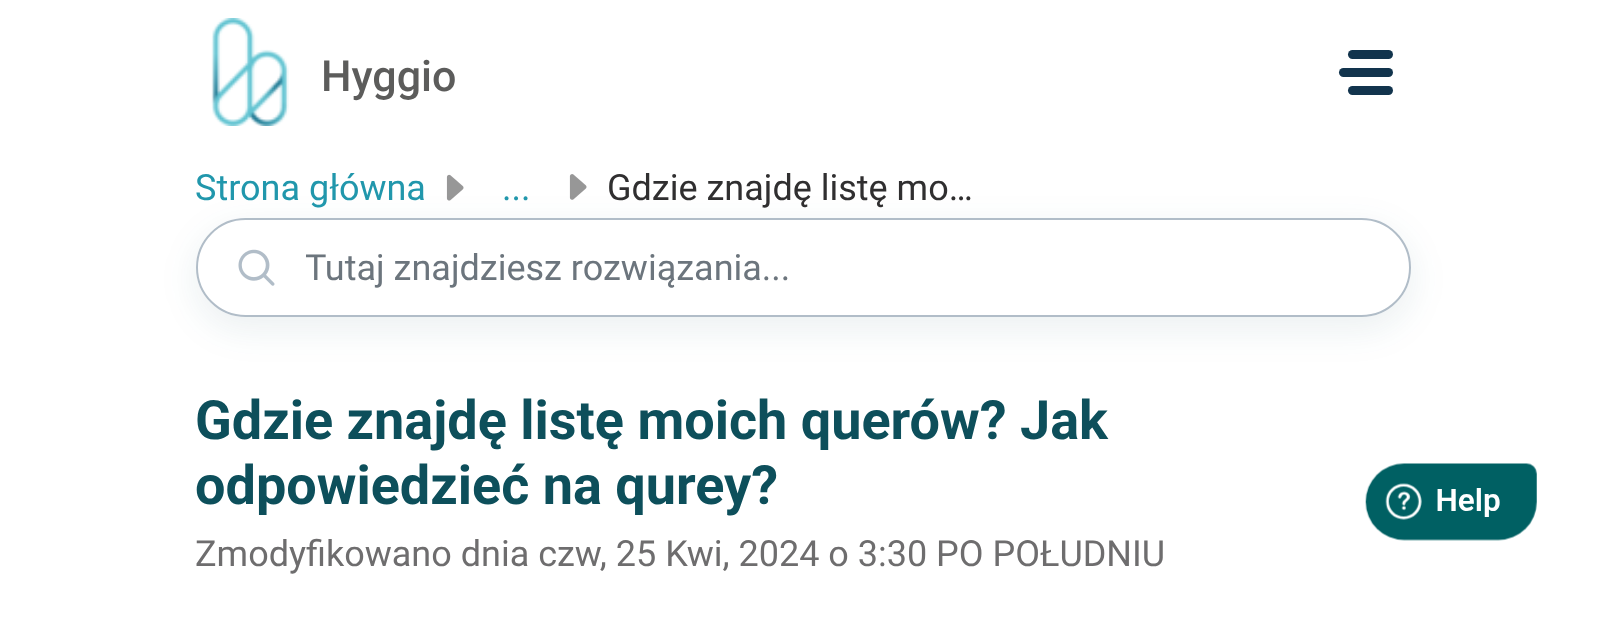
(async () => {
  const canvas = document.querySelector("canvas");
  canvas.width = 1604;
  canvas.height = 619;
  const ctx = canvas.getContext("2d");
  ctx.miterLimit = 4;
  ctx.fontKerning = "normal";
  async function loadImage(src) {
    const img = new Image();
    img.src = src;
    await img.decode();
    return img;
  }
  let path;

  ctx.fillStyle = "#ffffff";
  ctx.fillRect(0, 0, 1604, 619);
  ctx.drawImage(await loadImage("img/1.png"), 211, 18, 78, 108);
  ctx.fillStyle = "#12344d";
  ctx.beginPath();
  ctx.roundRect(1348, 50, 45, 9, 4.5);
  ctx.fill();
  ctx.beginPath();
  ctx.roundRect(1339, 68, 54, 9, 4.5);
  ctx.fill();
  ctx.beginPath();
  ctx.roundRect(1348, 86, 45, 9, 4.5);
  ctx.fill();
  ctx.drawImage(await loadImage("img/2.png"), 446, 174, 18, 27);
  ctx.drawImage(await loadImage("img/3.png"), 569, 174, 18, 26);
  ctx.save();
  path = new Path2D("M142 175H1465V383H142ZM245.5 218H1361.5C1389 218 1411 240 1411 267.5C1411 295 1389 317 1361.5 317H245.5C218 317 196 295 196 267.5C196 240 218 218 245.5 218Z");
  ctx.clip(path, "evenodd");
  ctx.fillStyle = "rgba(13, 79, 91, 0.08)";
  ctx.filter = "blur(17px)";
  ctx.beginPath();
  ctx.roundRect(194, 227, 1219, 104, 52);
  ctx.fill();
  ctx.filter = "none";
  ctx.restore();
  ctx.beginPath();
  ctx.roundRect(197, 219, 1213, 97, 48.5);
  ctx.strokeStyle = "#b1bdc8";
  ctx.lineWidth = 2;
  ctx.stroke();
  ctx.drawImage(await loadImage("img/4.png"), 238, 249, 37, 37);
  ctx.drawImage(await loadImage("img/5.png"), 1365, 463, 172, 78);
  ctx.font = "500 43px Roboto";
  ctx.fillStyle = "#5c5c5b";
  ctx.fillText("Hyggio", 321, 91);
  ctx.font = "36px Roboto";
  ctx.fillStyle = "#2197ac";
  ctx.fillText("Strona główna", 195, 200);
  ctx.fillText("...", 502, 200);
  ctx.fillStyle = "#302f30";
  ctx.fillText("Gdzie znajdę listę mo…", 607, 200);
  ctx.save();
  ctx.beginPath();
  ctx.rect(306, 248, 995, 42);
  ctx.clip();
  ctx.fillStyle = "#6c757d";
  ctx.fillText("Tutaj znajdziesz rozwiązania...", 305, 280);
  ctx.restore();
  ctx.font = "bold 54px Roboto";
  ctx.fillStyle = "#0d4f5b";
  ctx.fillText("Gdzie znajdę listę moich querów? Jak", 195, 439);
  ctx.fillText("odpowiedzieć na qurey?", 195, 504);
  ctx.font = "36px Roboto";
  ctx.fillStyle = "#6e6d6e";
  ctx.fillText("Zmodyfikowano dnia czw, 25 Kwi, 2024 o 3:30 PO POŁUDNIU", 195, 566);
})();
